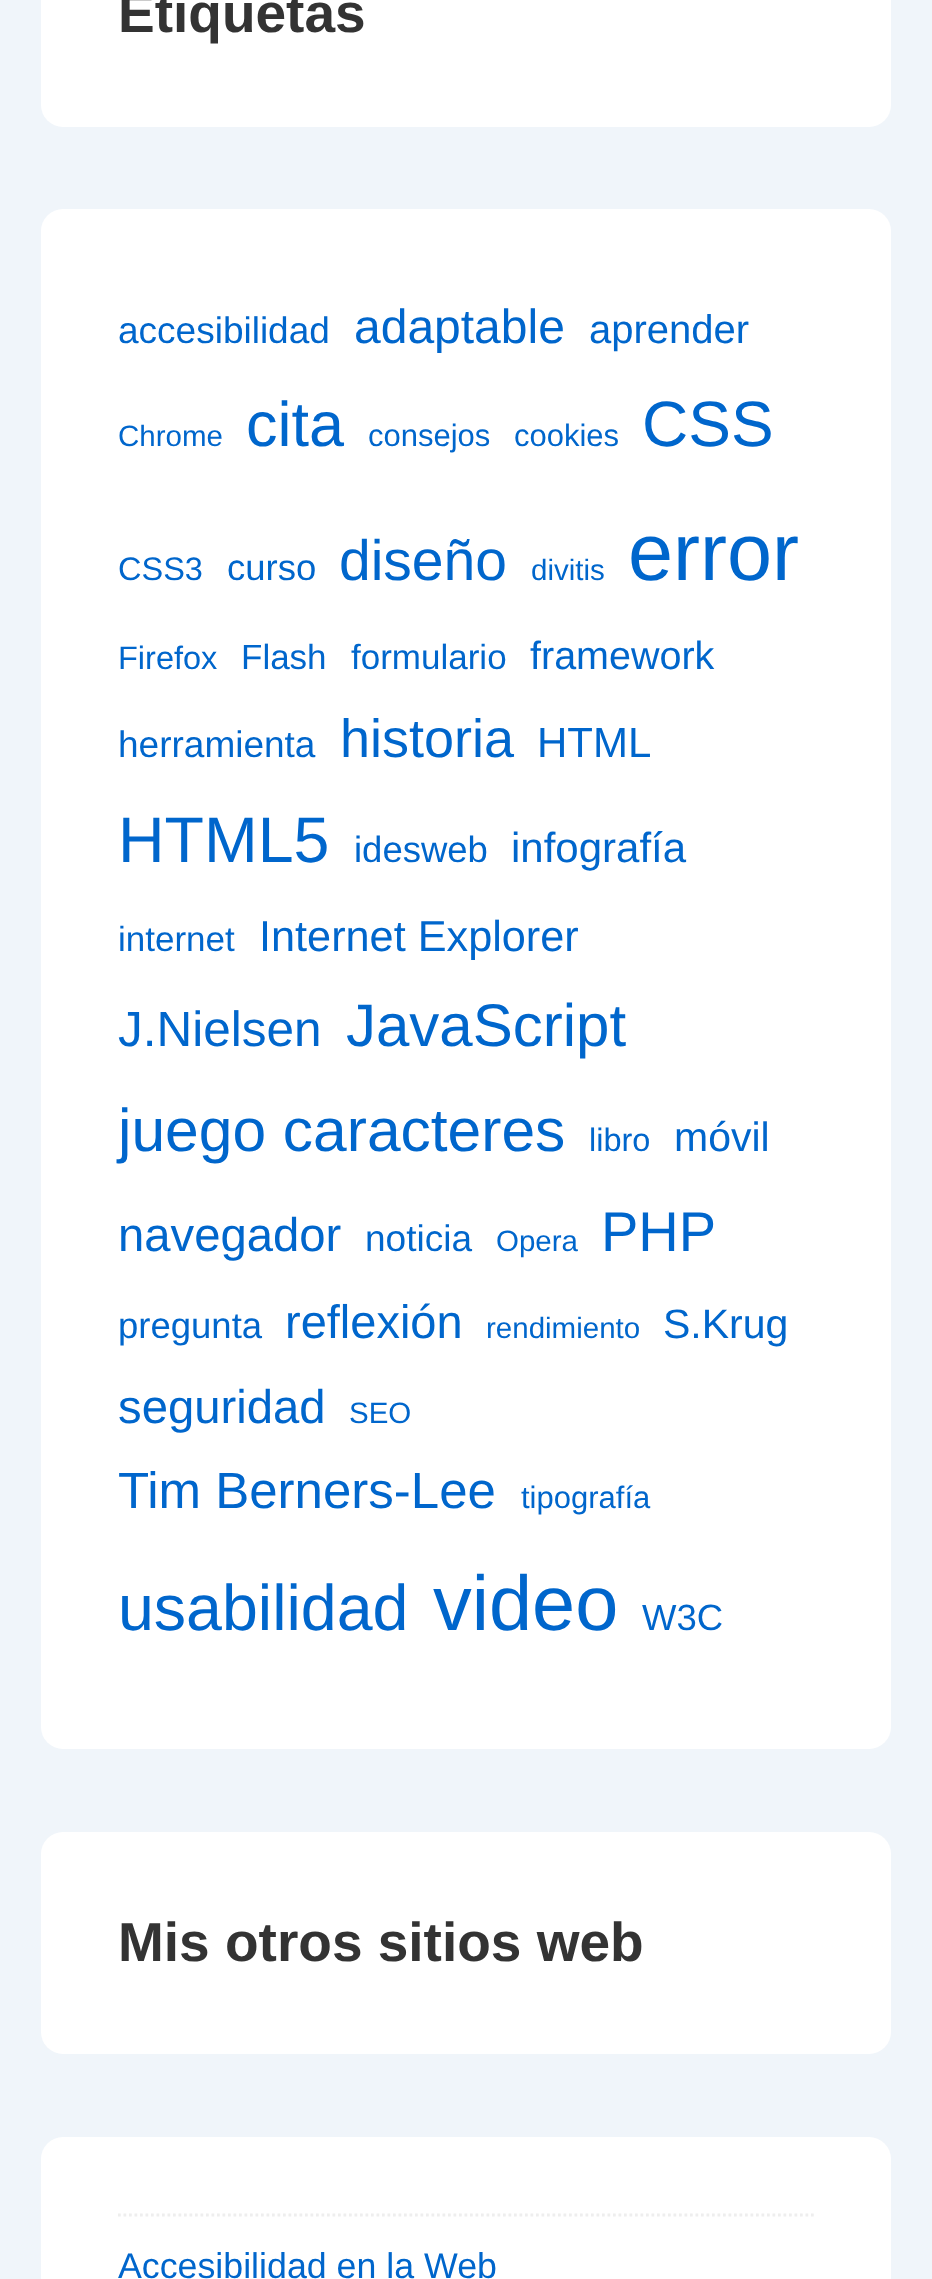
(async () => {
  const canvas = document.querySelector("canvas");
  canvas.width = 932;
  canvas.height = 2279;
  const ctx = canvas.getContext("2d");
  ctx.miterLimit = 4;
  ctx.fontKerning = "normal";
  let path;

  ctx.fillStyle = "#f0f5fa";
  ctx.fillRect(0, 0, 932, 2279);
  ctx.fillStyle = "#ffffff";
  ctx.beginPath();
  ctx.roundRect(41, -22, 850, 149, 22);
  ctx.fill();
  ctx.beginPath();
  ctx.roundRect(41, 209, 850, 1540, 22);
  ctx.fill();
  ctx.beginPath();
  ctx.roundRect(41, 1832, 850, 222, 22);
  ctx.fill();
  ctx.beginPath();
  ctx.roundRect(41, 2137, 850, 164, 22);
  ctx.fill();
  path = new Path2D("M118 2215H814");
  ctx.strokeStyle = "#eeeeee";
  ctx.lineWidth = 2.8;
  ctx.setLineDash([2.75, 2.75]);
  ctx.stroke(path);
  ctx.font = "bold 55px Liberation Sans";
  ctx.fillStyle = "#333333";
  ctx.fillText("Etiquetas", 118, 32);
  ctx.font = "37px Liberation Sans";
  ctx.fillStyle = "#0066cc";
  ctx.fillText("accesibilidad", 118, 343);
  ctx.font = "48px Liberation Sans";
  ctx.fillText("adaptable", 354, 343);
  ctx.font = "40px Liberation Sans";
  ctx.fillText("aprender", 589, 343);
  ctx.font = "29.5px Liberation Sans";
  ctx.fillText("Chrome", 118, 446);
  ctx.font = "63px Liberation Sans";
  ctx.fillText("cita", 246, 446);
  ctx.font = "31px Liberation Sans";
  ctx.fillText("consejos", 368, 446);
  ctx.fillText("cookies", 514, 446);
  ctx.font = "64px Liberation Sans";
  ctx.fillText("CSS", 642, 446);
  ctx.font = "32.5px Liberation Sans";
  ctx.fillText("CSS3", 118, 580);
  ctx.font = "36.5px Liberation Sans";
  ctx.fillText("curso", 227, 580);
  ctx.font = "57px Liberation Sans";
  ctx.fillText("diseño", 339, 580);
  ctx.font = "29.5px Liberation Sans";
  ctx.fillText("divitis", 531, 580);
  ctx.font = "81px Liberation Sans";
  ctx.fillText("error", 628, 580);
  ctx.font = "32.5px Liberation Sans";
  ctx.fillText("Firefox", 118, 669);
  ctx.font = "35px Liberation Sans";
  ctx.fillText("Flash", 241, 669);
  ctx.fillText("formulario", 351, 669);
  ctx.font = "39.5px Liberation Sans";
  ctx.fillText("framework", 530, 669);
  ctx.font = "37px Liberation Sans";
  ctx.fillText("herramienta", 118, 757);
  ctx.font = "54px Liberation Sans";
  ctx.fillText("historia", 340, 757);
  ctx.font = "42px Liberation Sans";
  ctx.fillText("HTML", 537, 757);
  ctx.font = "64.5px Liberation Sans";
  ctx.fillText("HTML5", 118, 862);
  ctx.font = "36.5px Liberation Sans";
  ctx.fillText("idesweb", 354, 862);
  ctx.font = "42px Liberation Sans";
  ctx.fillText("infografía", 511, 862);
  ctx.font = "35px Liberation Sans";
  ctx.fillText("internet", 118, 951);
  ctx.font = "43.25px Liberation Sans";
  ctx.fillText("Internet Explorer", 259, 951);
  ctx.font = "49.5px Liberation Sans";
  ctx.fillText("J.Nielsen", 118, 1046);
  ctx.font = "60px Liberation Sans";
  ctx.fillText("JavaScript", 346, 1046);
  ctx.font = "60.5px Liberation Sans";
  ctx.fillText("juego caracteres", 118, 1151);
  ctx.font = "32.5px Liberation Sans";
  ctx.fillText("libro", 589, 1151);
  ctx.font = "41px Liberation Sans";
  ctx.fillText("móvil", 674, 1151);
  ctx.font = "47.25px Liberation Sans";
  ctx.fillText("navegador", 118, 1251);
  ctx.font = "37px Liberation Sans";
  ctx.fillText("noticia", 365, 1251);
  ctx.font = "29.5px Liberation Sans";
  ctx.fillText("Opera", 496, 1251);
  ctx.font = "56px Liberation Sans";
  ctx.fillText("PHP", 601, 1251);
  ctx.font = "36.5px Liberation Sans";
  ctx.fillText("pregunta", 118, 1338);
  ctx.font = "47px Liberation Sans";
  ctx.fillText("reflexión", 285, 1338);
  ctx.font = "29.5px Liberation Sans";
  ctx.fillText("rendimiento", 486, 1338);
  ctx.font = "41px Liberation Sans";
  ctx.fillText("S.Krug", 663, 1338);
  ctx.font = "47.25px Liberation Sans";
  ctx.fillText("seguridad", 118, 1423);
  ctx.font = "29.5px Liberation Sans";
  ctx.fillText("SEO", 349, 1423);
  ctx.font = "51px Liberation Sans";
  ctx.fillText("Tim Berners-Lee", 118, 1508);
  ctx.font = "31px Liberation Sans";
  ctx.fillText("tipografía", 521, 1508);
  ctx.font = "64.5px Liberation Sans";
  ctx.fillText("usabilidad", 118, 1630);
  ctx.font = "77.5px Liberation Sans";
  ctx.fillText("video", 433, 1630);
  ctx.font = "36.5px Liberation Sans";
  ctx.fillText("W3C", 642, 1630);
  ctx.font = "bold 55px Liberation Sans";
  ctx.fillStyle = "#333333";
  ctx.fillText("Mis otros sitios web", 118, 1961);
  ctx.font = "35.75px Liberation Sans";
  ctx.fillStyle = "#0066cc";
  ctx.fillText("Accesibilidad en la Web", 118, 2278);
})();
